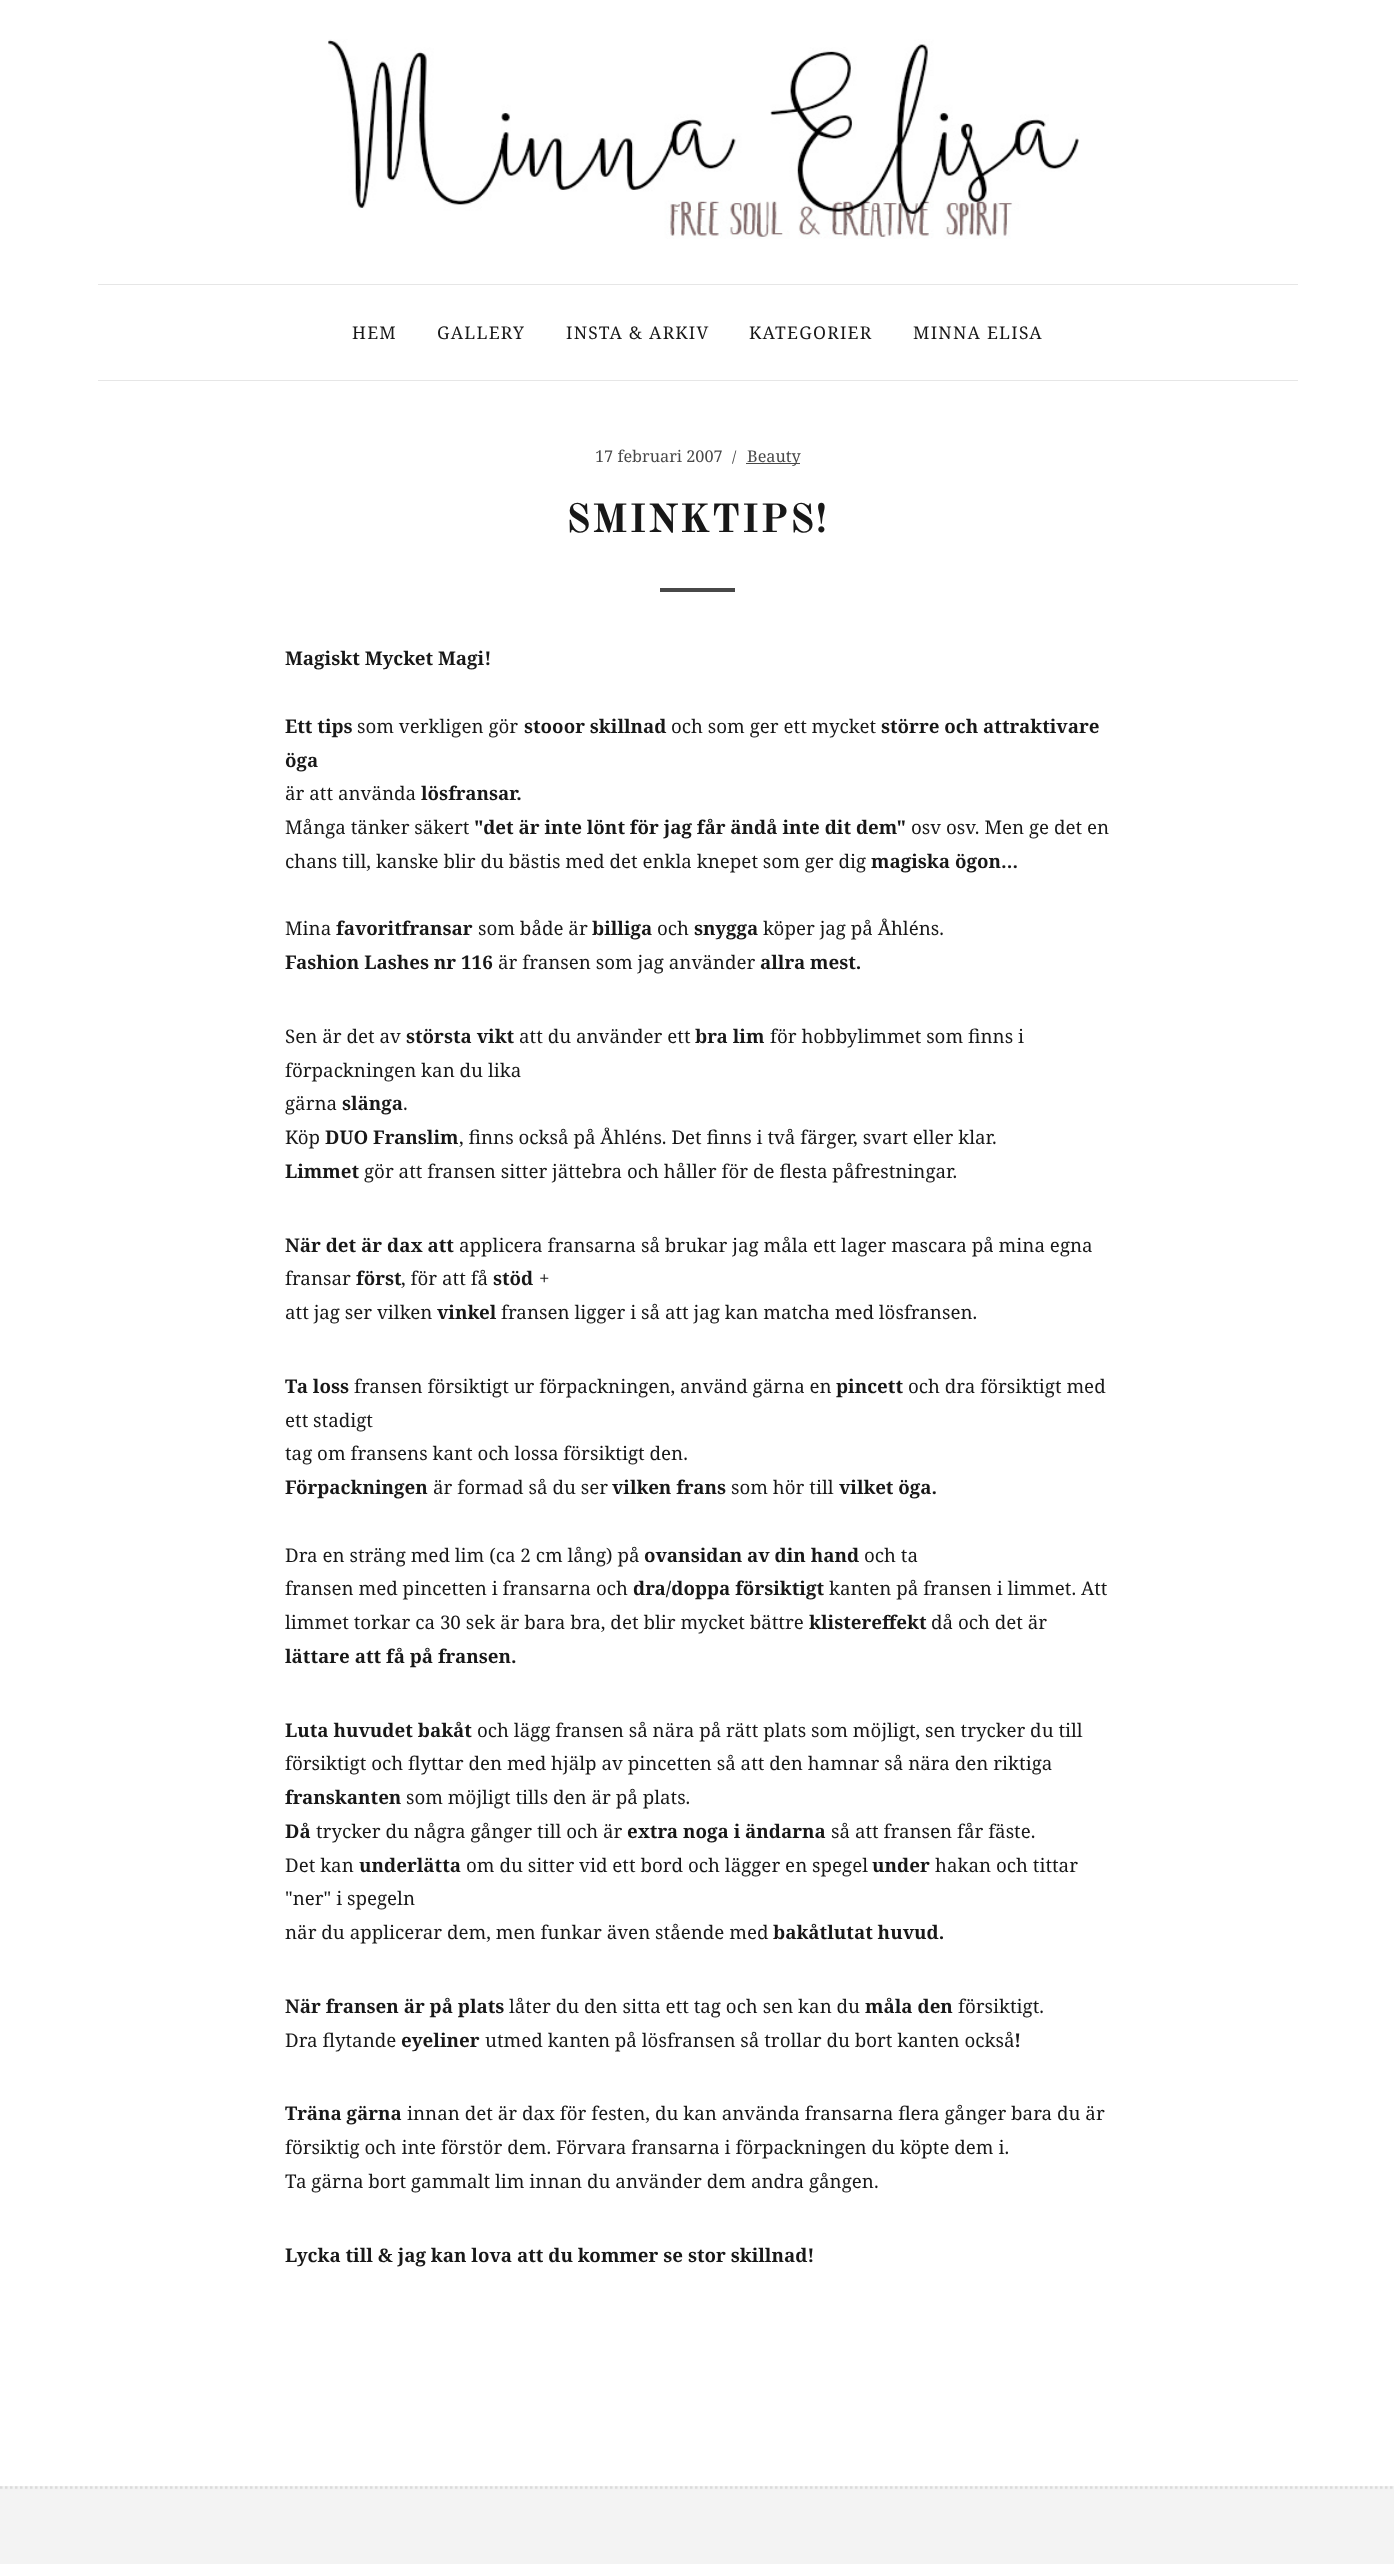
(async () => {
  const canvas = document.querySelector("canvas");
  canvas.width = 1394;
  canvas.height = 2564;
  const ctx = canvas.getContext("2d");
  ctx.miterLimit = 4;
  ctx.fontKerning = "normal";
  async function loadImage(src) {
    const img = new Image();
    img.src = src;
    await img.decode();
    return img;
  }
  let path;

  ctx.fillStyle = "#ffffff";
  ctx.fillRect(0, 0, 1394, 2564);
  ctx.drawImage(await loadImage("img/1.png"), 328, 39, 752, 200);
  for (const [x, y, w, h, color] of [
    [98, 284, 1200, 1, "#e6e6e6"],
    [98, 380, 1200, 1, "#e6e6e6"],
    [746, 463, 54, 1, "#484848"],
    [660, 588, 75, 4, "#484848"],
    [0, 2486, 1394, 78, "#f3f3f3"],
  ]) {
    ctx.fillStyle = color;
    ctx.fillRect(x, y, w, h);
  }
  path = new Path2D("M0 2487.5H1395");
  ctx.strokeStyle = "#dbdbdb";
  ctx.lineWidth = 2.5;
  ctx.setLineDash([2.5, 2.5]);
  ctx.stroke(path);
  ctx.letterSpacing = "1.25px";
  ctx.font = "17.5px Noto Serif";
  ctx.fillStyle = "#181818";
  for (const [text, x, y] of [
    ["HEM", 352, 339],
    ["GALLERY", 437, 339],
    ["INSTA & ARKIV", 566, 339],
    ["KATEGORIER", 749, 339],
    ["MINNA ELISA", 913, 339],
  ]) {
    ctx.fillText(text, x, y);
  }
  ctx.letterSpacing = "0px";
  ctx.font = "16.25px Noto Serif";
  ctx.fillStyle = "#484848";
  ctx.fillText("17 februari 2007", 595, 462);
  ctx.font = "15px Noto Serif";
  ctx.fillText("/", 732, 462);
  ctx.font = "16.25px Noto Serif";
  ctx.fillText("Beauty", 747, 462);
  ctx.letterSpacing = "1.25px";
  ctx.font = "bold 40px Old Standard TT";
  ctx.fillStyle = "#181818";
  ctx.fillText("SMINKTIPS!", 566, 532);
  ctx.letterSpacing = "0px";
  ctx.font = "bold 18.75px Noto Serif";
  ctx.fillText("Magiskt Mycket Magi!", 285, 665);
  ctx.fillText("Ett tips", 285, 733);
  ctx.font = "18.75px Noto Serif";
  ctx.fillText("som verkligen gör", 357, 733);
  ctx.font = "bold 18.75px Noto Serif";
  ctx.fillText("stooor skillnad", 524, 733);
  ctx.font = "18.75px Noto Serif";
  ctx.fillText("och som ger ett mycket", 671, 733);
  ctx.font = "bold 18.75px Noto Serif";
  ctx.fillText("större och attraktivare", 881, 733);
  ctx.fillText("öga", 285, 767);
  ctx.font = "18.75px Noto Serif";
  ctx.fillText("är att använda", 285, 800);
  ctx.font = "bold 18.75px Noto Serif";
  ctx.fillText("lösfransar.", 421, 800);
  ctx.font = "18.75px Noto Serif";
  ctx.fillText("Många tänker säkert", 285, 834);
  ctx.font = "bold 18.75px Noto Serif";
  ctx.fillText("\"det är inte lönt för jag får ändå inte dit dem\"", 474, 834);
  ctx.font = "18.75px Noto Serif";
  ctx.fillText("osv osv. Men ge det en", 911, 834);
  ctx.fillText("chans till, kanske blir du bästis med det enkla knepet som ger dig", 285, 868);
  ctx.font = "bold 18.75px Noto Serif";
  ctx.fillText("magiska ögon…", 871, 868);
  ctx.font = "18.75px Noto Serif";
  ctx.fillText("Mina", 285, 935);
  ctx.font = "bold 18.75px Noto Serif";
  ctx.fillText("favoritfransar", 336, 935);
  ctx.font = "18.75px Noto Serif";
  ctx.fillText("som både är", 478, 935);
  ctx.font = "bold 18.75px Noto Serif";
  ctx.fillText("billiga", 592, 935);
  ctx.font = "18.75px Noto Serif";
  ctx.fillText("och", 657, 935);
  ctx.font = "bold 18.75px Noto Serif";
  ctx.fillText("snygga", 694, 935);
  ctx.font = "18.75px Noto Serif";
  ctx.fillText("köper jag på Åhléns.", 763, 935);
  ctx.font = "bold 18.75px Noto Serif";
  ctx.fillText("Fashion Lashes nr 116", 285, 969);
  ctx.font = "18.75px Noto Serif";
  ctx.fillText("är fransen som jag använder", 498, 969);
  ctx.font = "bold 18.75px Noto Serif";
  ctx.fillText("allra mest.", 760, 969);
  ctx.font = "18.75px Noto Serif";
  ctx.fillText("Sen är det av", 285, 1043);
  ctx.font = "bold 18.75px Noto Serif";
  ctx.fillText("största vikt", 406, 1043);
  ctx.font = "18.75px Noto Serif";
  ctx.fillText("att du använder ett", 519, 1043);
  ctx.font = "bold 18.75px Noto Serif";
  ctx.fillText("bra lim", 695, 1043);
  ctx.font = "18.75px Noto Serif";
  for (const [text, x, y] of [
    ["för hobbylimmet som finns i", 770, 1043],
    ["förpackningen kan du lika", 285, 1077],
    ["gärna", 285, 1110],
  ]) {
    ctx.fillText(text, x, y);
  }
  ctx.font = "bold 18.75px Noto Serif";
  ctx.fillText("slänga", 342, 1110);
  ctx.font = "18.75px Noto Serif";
  ctx.fillText(".", 403, 1110);
  ctx.fillText("Köp", 285, 1144);
  ctx.font = "bold 18.75px Noto Serif";
  ctx.fillText("DUO Franslim", 325, 1144);
  ctx.font = "18.75px Noto Serif";
  ctx.fillText(", finns också på Åhléns. Det finns i två färger, svart eller klar.", 459, 1144);
  ctx.font = "bold 18.75px Noto Serif";
  ctx.fillText("Limmet", 285, 1178);
  ctx.font = "18.75px Noto Serif";
  ctx.fillText("gör att fransen sitter jättebra och håller för de flesta påfrestningar.", 364, 1178);
  ctx.font = "bold 18.75px Noto Serif";
  ctx.fillText("När det är dax att", 285, 1252);
  ctx.font = "18.75px Noto Serif";
  ctx.fillText("applicera fransarna så brukar jag måla ett lager mascara på mina egna", 459, 1252);
  ctx.fillText("fransar", 285, 1285);
  ctx.font = "bold 18.75px Noto Serif";
  ctx.fillText("först", 356, 1285);
  ctx.font = "18.75px Noto Serif";
  ctx.fillText(", för att få", 401, 1285);
  ctx.font = "bold 18.75px Noto Serif";
  ctx.fillText("stöd", 493, 1285);
  ctx.font = "18.75px Noto Serif";
  ctx.fillText("+", 539, 1285);
  ctx.fillText("att jag ser vilken", 285, 1319);
  ctx.font = "bold 18.75px Noto Serif";
  ctx.fillText("vinkel", 437, 1319);
  ctx.font = "18.75px Noto Serif";
  ctx.fillText("fransen ligger i så att jag kan matcha med lösfransen.", 501, 1319);
  ctx.font = "bold 18.75px Noto Serif";
  ctx.fillText("Ta loss", 285, 1393);
  ctx.font = "18.75px Noto Serif";
  ctx.fillText("fransen försiktigt ur förpackningen, använd gärna en", 354, 1393);
  ctx.font = "bold 18.75px Noto Serif";
  ctx.fillText("pincett", 836, 1393);
  ctx.font = "18.75px Noto Serif";
  for (const [text, x, y] of [
    ["och dra försiktigt med", 908, 1393],
    ["ett stadigt", 285, 1427],
    ["tag om fransens kant och lossa försiktigt den.", 285, 1460],
  ]) {
    ctx.fillText(text, x, y);
  }
  ctx.font = "bold 18.75px Noto Serif";
  ctx.fillText("Förpackningen", 285, 1494);
  ctx.font = "18.75px Noto Serif";
  ctx.fillText("är formad så du ser", 433, 1494);
  ctx.font = "bold 18.75px Noto Serif";
  ctx.fillText("vilken frans", 612, 1494);
  ctx.font = "18.75px Noto Serif";
  ctx.fillText("som hör till", 731, 1494);
  ctx.font = "bold 18.75px Noto Serif";
  ctx.fillText("vilket öga.", 839, 1494);
  ctx.font = "18.75px Noto Serif";
  ctx.fillText("Dra en sträng med lim (ca 2 cm lång) på", 285, 1562);
  ctx.font = "bold 18.75px Noto Serif";
  ctx.fillText("ovansidan av din hand", 644, 1562);
  ctx.font = "18.75px Noto Serif";
  ctx.fillText("och ta", 864, 1562);
  ctx.fillText("fransen med pincetten i fransarna och", 285, 1595);
  ctx.font = "bold 18.75px Noto Serif";
  ctx.fillText("dra/doppa försiktigt", 633, 1595);
  ctx.font = "18.75px Noto Serif";
  ctx.fillText("kanten på fransen i limmet. Att", 829, 1595);
  ctx.fillText("limmet torkar ca 30 sek är bara bra, det blir mycket bättre", 285, 1629);
  ctx.font = "bold 18.75px Noto Serif";
  ctx.fillText("klistereffekt", 809, 1629);
  ctx.font = "18.75px Noto Serif";
  ctx.fillText("då och det är", 931, 1629);
  ctx.font = "bold 18.75px Noto Serif";
  ctx.fillText("lättare att få på fransen.", 285, 1663);
  ctx.fillText("Luta huvudet bakåt", 285, 1737);
  ctx.font = "18.75px Noto Serif";
  ctx.fillText("och lägg fransen så nära på rätt plats som möjligt, sen trycker du till", 477, 1737);
  ctx.fillText("försiktigt och flyttar den med hjälp av pincetten så att den hamnar så nära den riktiga", 285, 1770);
  ctx.font = "bold 18.75px Noto Serif";
  ctx.fillText("franskanten", 285, 1804);
  ctx.font = "18.75px Noto Serif";
  ctx.fillText("som möjligt tills den är på plats.", 406, 1804);
  ctx.font = "bold 18.75px Noto Serif";
  ctx.fillText("Då", 285, 1838);
  ctx.font = "18.75px Noto Serif";
  ctx.fillText("trycker du några gånger till och är", 316, 1838);
  ctx.font = "bold 18.75px Noto Serif";
  ctx.fillText("extra noga i ändarna", 627, 1838);
  ctx.font = "18.75px Noto Serif";
  ctx.fillText("så att fransen får fäste.", 831, 1838);
  ctx.fillText("Det kan", 285, 1872);
  ctx.font = "bold 18.75px Noto Serif";
  ctx.fillText("underlätta", 359, 1872);
  ctx.font = "18.75px Noto Serif";
  ctx.fillText("om du sitter vid ett bord och lägger en spegel", 466, 1872);
  ctx.font = "bold 18.75px Noto Serif";
  ctx.fillText("under", 872, 1872);
  ctx.font = "18.75px Noto Serif";
  for (const [text, x, y] of [
    ["hakan och tittar", 935, 1872],
    ["\"ner\" i spegeln", 285, 1905],
    ["när du applicerar dem, men funkar även stående med", 285, 1939],
  ]) {
    ctx.fillText(text, x, y);
  }
  ctx.font = "bold 18.75px Noto Serif";
  ctx.fillText("bakåtlutat huvud.", 773, 1939);
  ctx.fillText("När fransen är på plats", 285, 2013);
  ctx.font = "18.75px Noto Serif";
  ctx.fillText("låter du den sitta ett tag och sen kan du", 509, 2013);
  ctx.font = "bold 18.75px Noto Serif";
  ctx.fillText("måla den", 865, 2013);
  ctx.font = "18.75px Noto Serif";
  ctx.fillText("försiktigt.", 958, 2013);
  ctx.fillText("Dra flytande", 285, 2047);
  ctx.font = "bold 18.75px Noto Serif";
  ctx.fillText("eyeliner", 401, 2047);
  ctx.font = "18.75px Noto Serif";
  ctx.fillText("utmed kanten på lösfransen så trollar du bort kanten också", 485, 2047);
  ctx.font = "bold 18.75px Noto Serif";
  ctx.fillText("!", 1014, 2047);
  ctx.fillText("Träna gärna", 285, 2120);
  ctx.font = "18.75px Noto Serif";
  for (const [text, x, y] of [
    ["innan det är dax för festen, du kan använda fransarna flera gånger bara du är", 407, 2120],
    ["försiktig och inte förstör dem. Förvara fransarna i förpackningen du köpte dem i.", 285, 2154],
    ["Ta gärna bort gammalt lim innan du använder dem andra gången.", 285, 2188],
  ]) {
    ctx.fillText(text, x, y);
  }
  ctx.font = "bold 18.75px Noto Serif";
  ctx.fillText("Lycka till & jag kan lova att du kommer se stor skillnad!", 285, 2262);
})();
